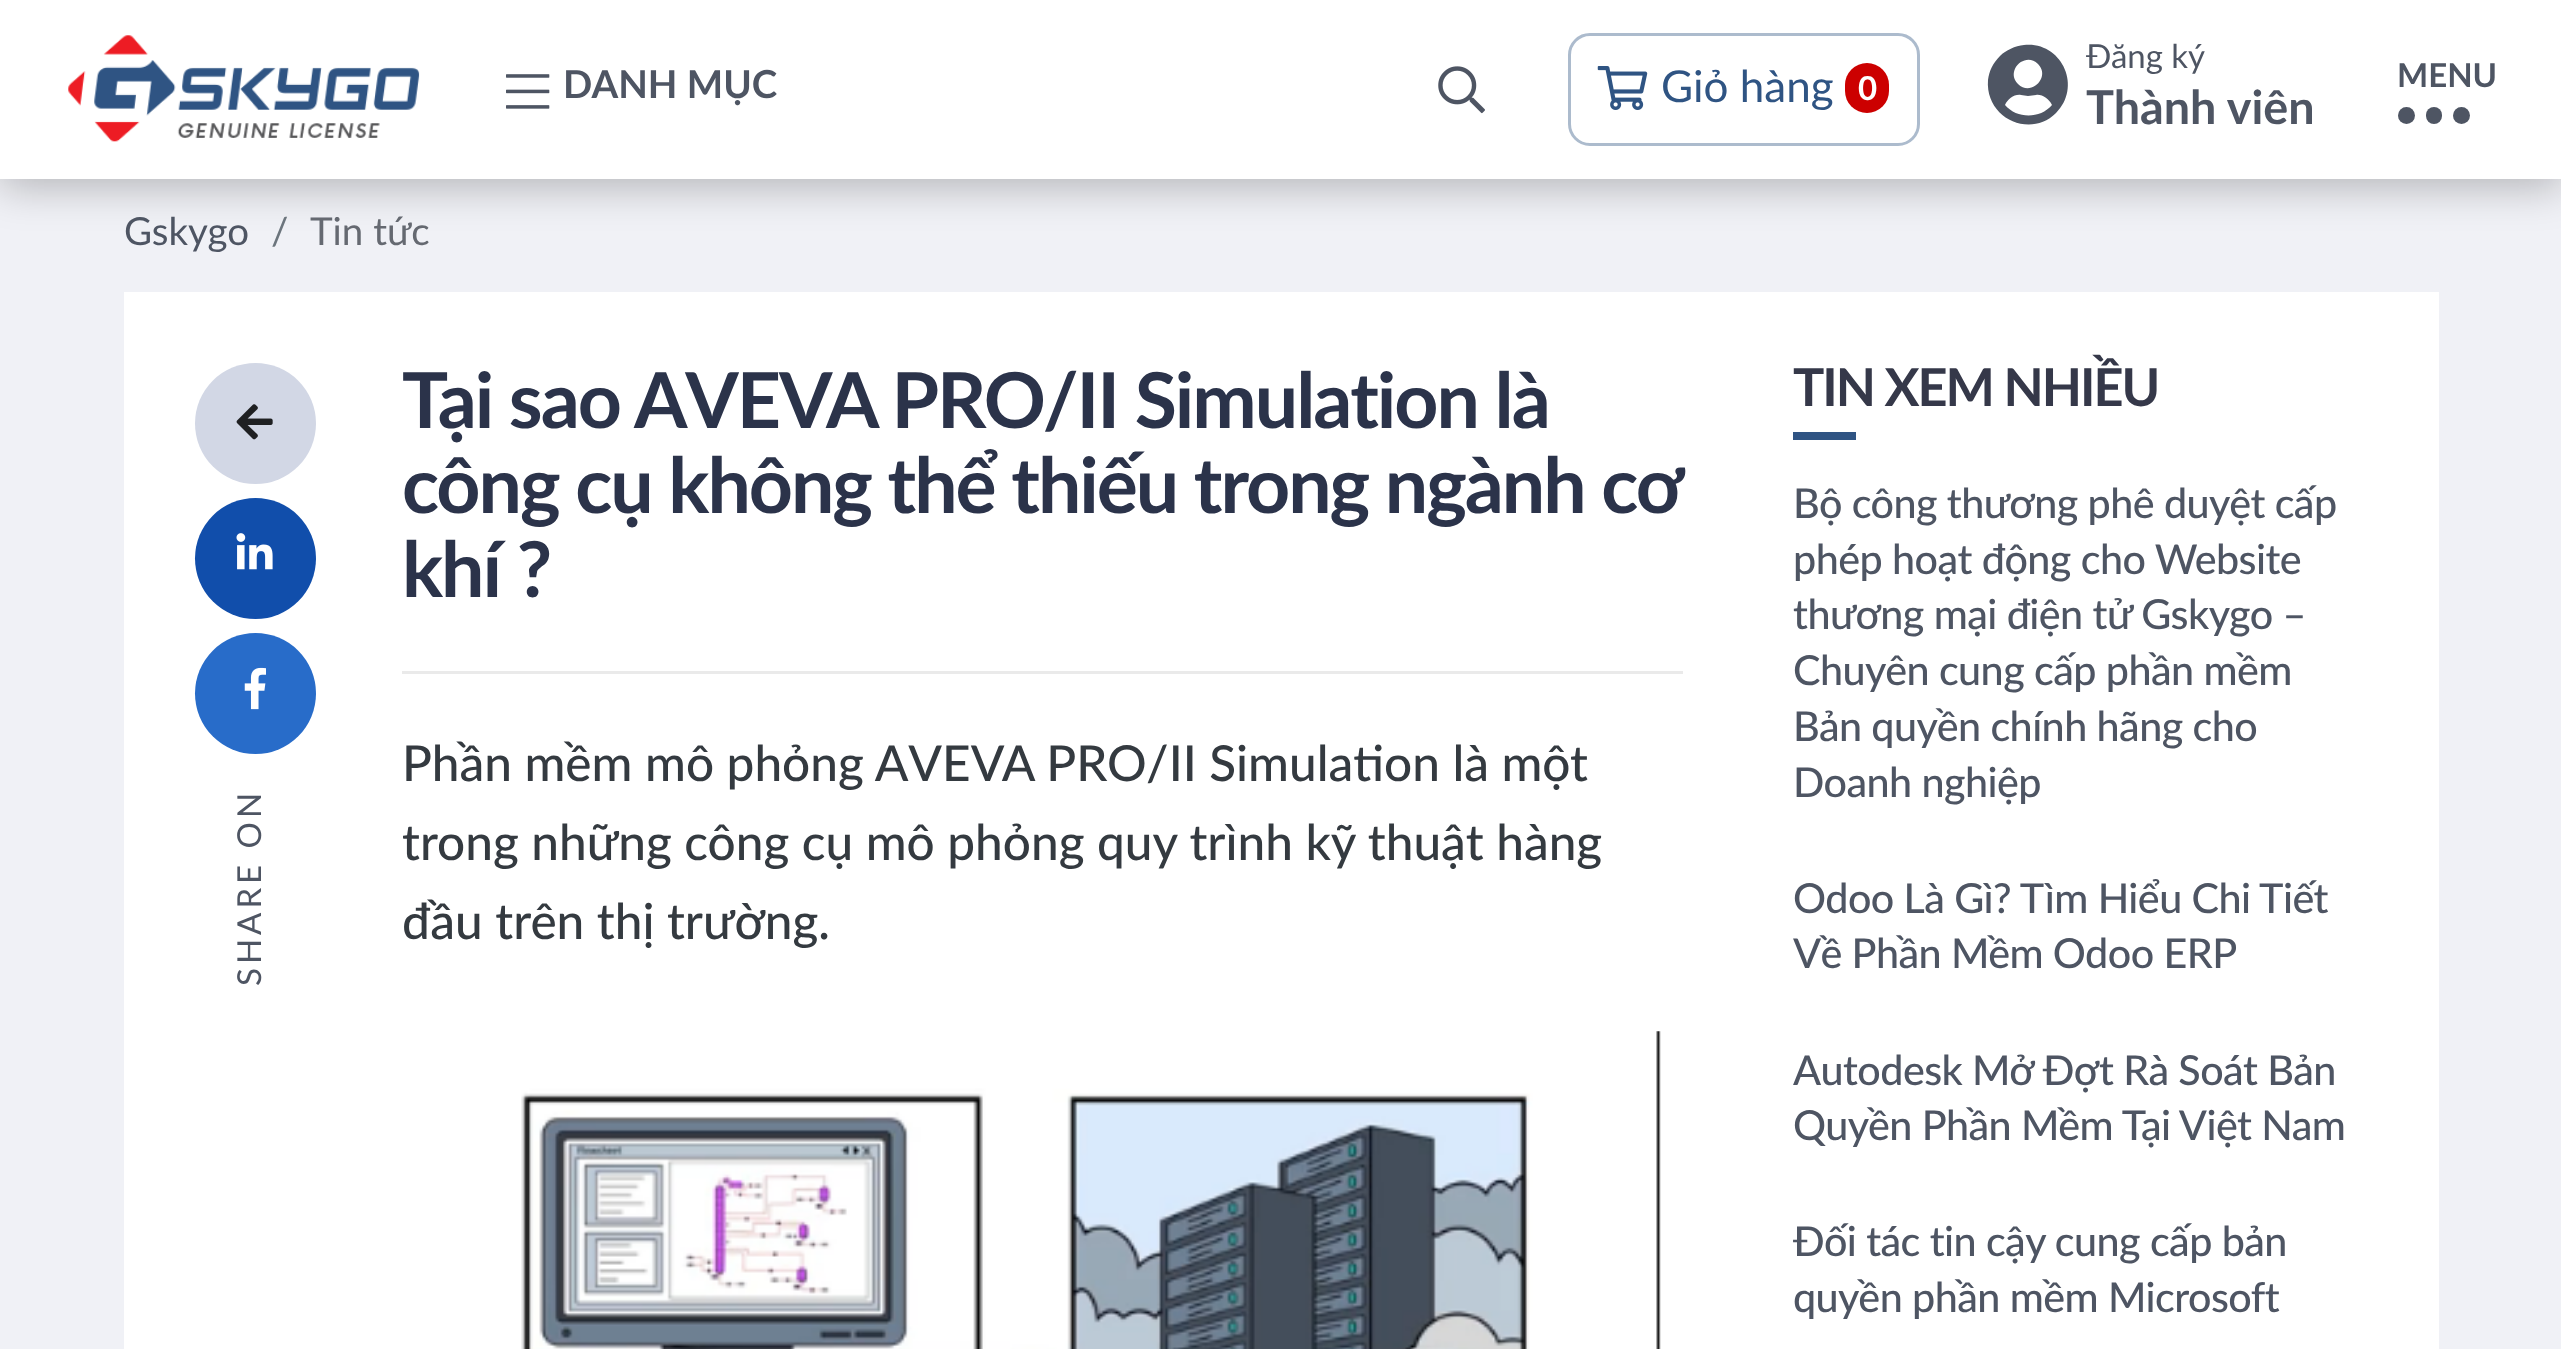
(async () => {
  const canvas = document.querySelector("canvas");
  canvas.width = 2561;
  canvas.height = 1349;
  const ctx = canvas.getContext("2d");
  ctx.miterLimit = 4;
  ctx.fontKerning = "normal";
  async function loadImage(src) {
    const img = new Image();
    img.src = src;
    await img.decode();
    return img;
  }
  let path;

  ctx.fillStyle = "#f0f1f6";
  ctx.fillRect(0, 0, 2561, 1349);
  ctx.fillStyle = "rgba(0, 0, 0, 0.25)";
  ctx.filter = "blur(20.5px)";
  ctx.beginPath();
  ctx.rect(0, 8, 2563, 179);
  ctx.fill();
  ctx.filter = "none";
  ctx.fillStyle = "#ffffff";
  ctx.fillRect(0, 0, 2561, 179);
  ctx.drawImage(await loadImage("img/1.png"), 68, 35, 352, 107);
  ctx.drawImage(await loadImage("img/2.png"), 506, 74, 44, 35);
  ctx.drawImage(await loadImage("img/3.png"), 1438, 66, 47, 48);
  ctx.beginPath();
  ctx.roundRect(1569.5, 34.5, 349, 110, 20.5);
  ctx.strokeStyle = "#acbbcd";
  ctx.lineWidth = 3;
  ctx.stroke();
  ctx.drawImage(await loadImage("img/4.png"), 1597, 66, 51, 44);
  ctx.fillStyle = "#cc0000";
  ctx.beginPath();
  ctx.roundRect(1845, 63, 44, 50, 22);
  ctx.fill();
  ctx.fillStyle = "#4e5563";
  path = new Path2D("M2000 56C2006 50 2015 46 2024 45C2061 41 2083 86 2056 113C2030 139 1985 118 1988 80C1989 71 1993 63 2000 56ZM2038 64C2025 51 2005 71 2018 84C2031 97 2051 77 2038 64ZM2005 105C2017 119 2040 119 2052 105C2049 99 2042 94 2036 95L2028 96L2021 95C2014 94 2008 99 2005 105Z");
  ctx.fill(path);
  ctx.beginPath();
  ctx.arc(2461.5, 115.5, 8.5, 0, Math.PI * 2);
  ctx.fill();
  ctx.beginPath();
  ctx.roundRect(2426, 107, 16, 17, 8);
  ctx.fill();
  ctx.beginPath();
  ctx.arc(2406.5, 115.5, 8.5, 0, Math.PI * 2);
  ctx.fill();
  ctx.fillStyle = "#ffffff";
  ctx.fillRect(124, 292, 2315, 1057);
  ctx.fillStyle = "#eaeaea";
  ctx.fillRect(402, 671, 1281, 3);
  ctx.fillStyle = "#d2d7e5";
  ctx.beginPath();
  ctx.arc(255.5, 423.5, 60.5, 0, Math.PI * 2);
  ctx.fill();
  ctx.drawImage(await loadImage("img/5.png"), 236, 404, 37, 36);
  ctx.fillStyle = "#114eab";
  ctx.beginPath();
  ctx.arc(255.5, 558.5, 60.5, 0, Math.PI * 2);
  ctx.fill();
  ctx.drawImage(await loadImage("img/6.png"), 236, 533, 37, 37);
  ctx.fillStyle = "#286cc9";
  ctx.beginPath();
  ctx.arc(255.5, 693.5, 60.5, 0, Math.PI * 2);
  ctx.fill();
  ctx.drawImage(await loadImage("img/7.png"), 244, 667, 22, 43);
  ctx.drawImage(await loadImage("img/8.png"), 521, 1031, 1140, 318);
  ctx.fillStyle = "#2f5483";
  ctx.fillRect(1793, 432, 63, 8);
  ctx.font = "bold 38.5px Lato";
  ctx.fillStyle = "#4e5563";
  ctx.fillText("DANH MỤC", 563, 98);
  ctx.font = "44px Lato";
  ctx.fillStyle = "#2f5483";
  ctx.fillText("Giỏ hàng", 1661, 102);
  ctx.font = "bold 33px Lato";
  ctx.fillStyle = "#ffffff";
  ctx.fillText("0", 1858, 100);
  ctx.font = "33px Lato";
  ctx.fillStyle = "#4e5563";
  ctx.fillText("Đăng ký", 2086, 68);
  ctx.font = "bold 46.75px Lato";
  ctx.fillText("Thành viên", 2086, 124);
  ctx.font = "bold 33px Lato";
  ctx.fillText("MENU", 2397, 87);
  ctx.font = "38.5px Lato";
  ctx.fillText("Gskygo", 124, 245);
  ctx.fillStyle = "#6c757d";
  ctx.fillText("/", 271, 245);
  ctx.fillStyle = "#656971";
  ctx.fillText("Tin tức", 310, 245);
  ctx.letterSpacing = "-2.05px";
  ctx.font = "bold 77px Lato";
  ctx.fillStyle = "#2b334a";
  for (const [text, x, y] of [
    ["Tại sao AVEVA PRO/II Simulation là", 402, 428],
    ["công cụ không thể thiếu trong ngành cơ", 402, 513],
    ["khí ?", 402, 597],
  ]) {
    ctx.fillText(text, x, y);
  }
  ctx.letterSpacing = "4px";
  ctx.font = "33px Lato";
  ctx.fillStyle = "#4e5563";
  ctx.save();
  ctx.translate(261, 986);
  ctx.rotate(-90 * Math.PI / 180);
  ctx.fillText("SHARE ON", 0, 0);
  ctx.restore();
  ctx.letterSpacing = "0px";
  ctx.font = "500 49.5px Lato";
  ctx.fillStyle = "#343a40";
  for (const [text, x, y] of [
    ["Phần mềm mô phỏng AVEVA PRO/II Simulation là một", 402, 781],
    ["trong những công cụ mô phỏng quy trình kỹ thuật hàng", 402, 860],
    ["đầu trên thị trường.", 402, 939],
  ]) {
    ctx.fillText(text, x, y);
  }
  ctx.letterSpacing = "-2.05px";
  ctx.font = "bold 52.25px Lato";
  ctx.fillStyle = "#353849";
  ctx.fillText("TIN XEM NHIỀU", 1793, 406);
  ctx.letterSpacing = "-0.55px";
  ctx.font = "500 41.25px Lato";
  ctx.fillStyle = "#4e5563";
  for (const [text, x, y] of [
    ["Bộ công thương phê duyệt cấp", 1793, 518],
    ["phép hoạt động cho Website", 1793, 574],
    ["thương mại điện tử Gskygo –", 1793, 629],
    ["Chuyên cung cấp phần mềm", 1793, 685],
    ["Bản quyền chính hãng cho", 1793, 741],
    ["Doanh nghiệp", 1793, 797],
    ["Odoo Là Gì? Tìm Hiểu Chi Tiết", 1793, 913],
    ["Về Phần Mềm Odoo ERP", 1793, 968],
    ["Autodesk Mở Đợt Rà Soát Bản", 1793, 1085],
    ["Quyền Phần Mềm Tại Việt Nam", 1793, 1140],
    ["Đối tác tin cậy cung cấp bản", 1793, 1256],
    ["quyền phần mềm Microsoft", 1793, 1312],
  ]) {
    ctx.fillText(text, x, y);
  }
})();
